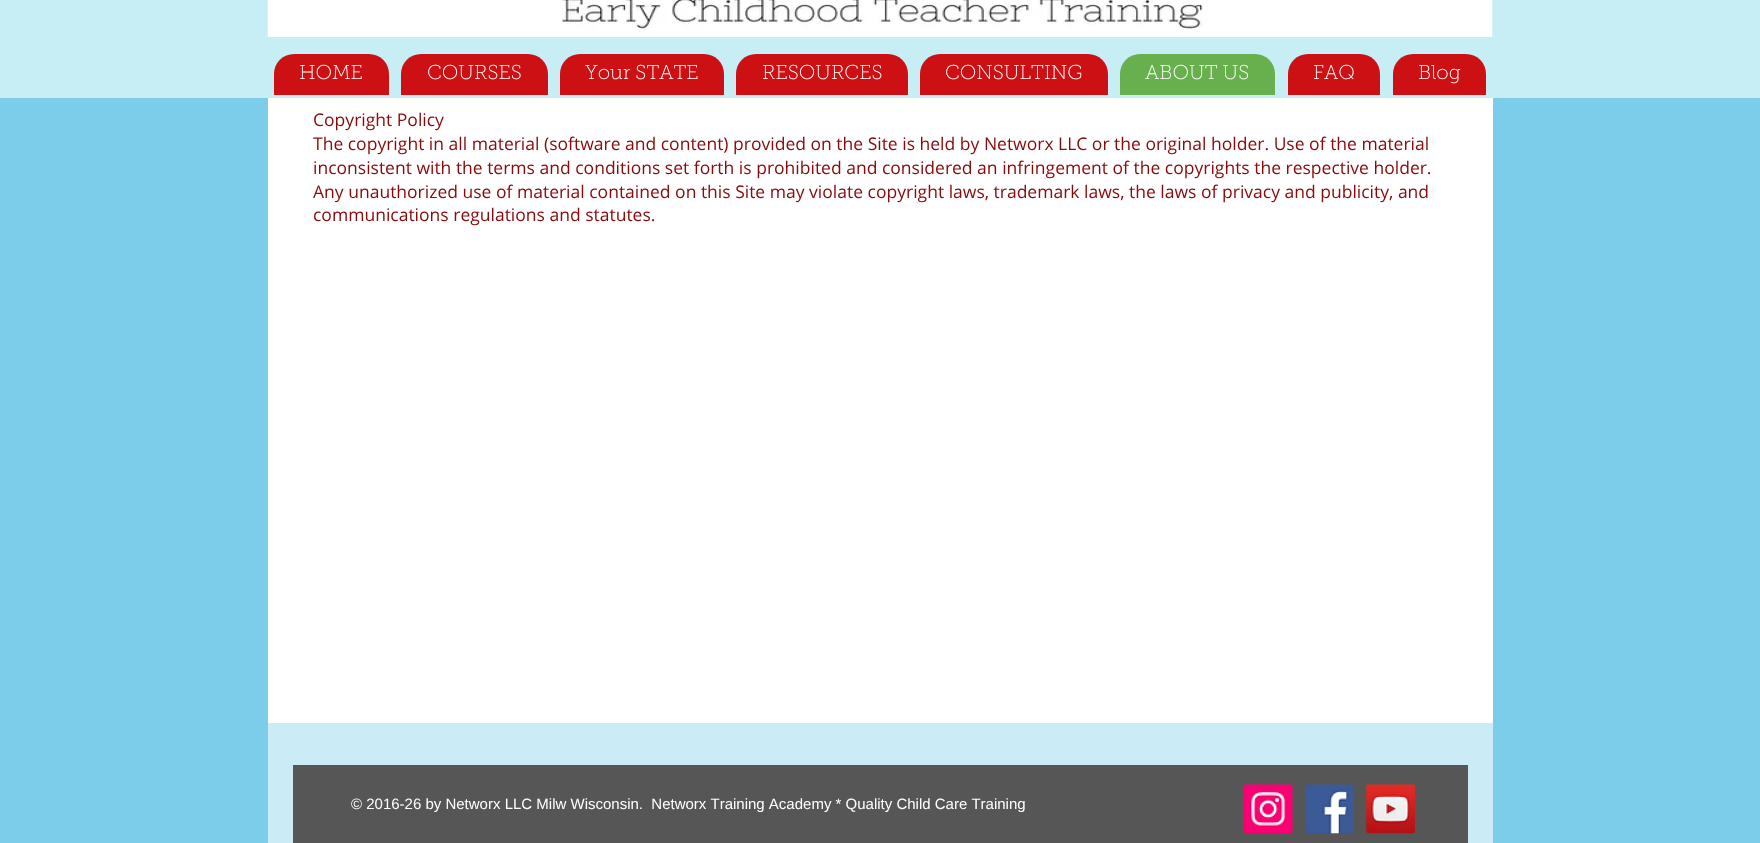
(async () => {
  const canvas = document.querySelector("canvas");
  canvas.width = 1760;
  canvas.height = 843;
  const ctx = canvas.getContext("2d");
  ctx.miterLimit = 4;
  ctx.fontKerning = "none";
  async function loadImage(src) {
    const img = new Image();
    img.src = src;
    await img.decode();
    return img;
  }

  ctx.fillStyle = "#7ccdea";
  ctx.fillRect(0, 0, 1760, 843);
  ctx.fillStyle = "#c8eef5";
  ctx.fillRect(0, 0, 1760, 98);
  ctx.drawImage(await loadImage("img/1.png"), 267, 0, 1226, 37);
  ctx.fillStyle = "#cc1013";
  ctx.beginPath();
  ctx.roundRect(274, 54, 115, 41, [20, 20, 0, 0]);
  ctx.fill();
  ctx.beginPath();
  ctx.roundRect(401, 54, 147, 41, [20, 20, 0, 0]);
  ctx.fill();
  ctx.beginPath();
  ctx.roundRect(560, 54, 164, 41, [20, 20, 0, 0]);
  ctx.fill();
  ctx.beginPath();
  ctx.roundRect(736, 54, 172, 41, [20, 20, 0, 0]);
  ctx.fill();
  ctx.beginPath();
  ctx.roundRect(920, 54, 188, 41, [20, 20, 0, 0]);
  ctx.fill();
  ctx.fillStyle = "#68b04d";
  ctx.beginPath();
  ctx.roundRect(1120, 54, 155, 41, [20, 20, 0, 0]);
  ctx.fill();
  ctx.fillStyle = "#cc1013";
  ctx.beginPath();
  ctx.roundRect(1288, 54, 92, 41, [20, 20, 0, 0]);
  ctx.fill();
  ctx.beginPath();
  ctx.roundRect(1393, 54, 93, 41, [20, 20, 0, 0]);
  ctx.fill();
  for (const [x, y, w, h, color] of [
    [268, 98, 1225, 625, "#ffffff"],
    [268, 723, 1225, 120, "#cbebf7"],
    [293, 765, 1175, 78, "#565656"],
  ]) {
    ctx.fillStyle = color;
    ctx.fillRect(x, y, w, h);
  }
  ctx.drawImage(await loadImage("img/2.png"), 1243, 784, 50, 50);
  ctx.drawImage(await loadImage("img/3.png"), 1305, 784, 49, 50);
  ctx.drawImage(await loadImage("img/4.png"), 1366, 784, 49, 50);
  ctx.font = "100 20px 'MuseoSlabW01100'";
  ctx.fillStyle = "#ffffff";
  for (const [text, x, y] of [
    ["HOME", 299, 79],
    ["COURSES", 427, 79],
    ["Your STATE", 585, 79],
    ["RESOURCES", 762, 79],
    ["CONSULTING", 945, 79],
    ["ABOUT US", 1145, 79],
    ["FAQ", 1313, 79],
    ["Blog", 1418, 79],
  ]) {
    ctx.fillText(text, x, y);
  }
  ctx.font = "17.5px Open Sans";
  ctx.fillStyle = "#880a0c";
  for (const [text, x, y] of [
    ["Copyright Policy", 313, 126],
    ["The copyright in all material (software and content) provided on the Site is held by Networx LLC or the original holder. Use of the material", 313, 150],
    ["inconsistent with the terms and conditions set forth is prohibited and considered an infringement of the copyrights the respective holder.", 313, 174],
    ["Any unauthorized use of material contained on this Site may violate copyright laws, trademark laws, the laws of privacy and publicity, and", 313, 198],
    ["communications regulations and statutes.", 313, 221],
  ]) {
    ctx.fillText(text, x, y);
  }
  ctx.font = "15px Liberation Sans";
  ctx.fillStyle = "#ffffff";
  ctx.fillText("© 2016-26 by Networx LLC Milw Wisconsin.  Networx Training Academy * Quality Child Care Training", 351, 809);
})();
